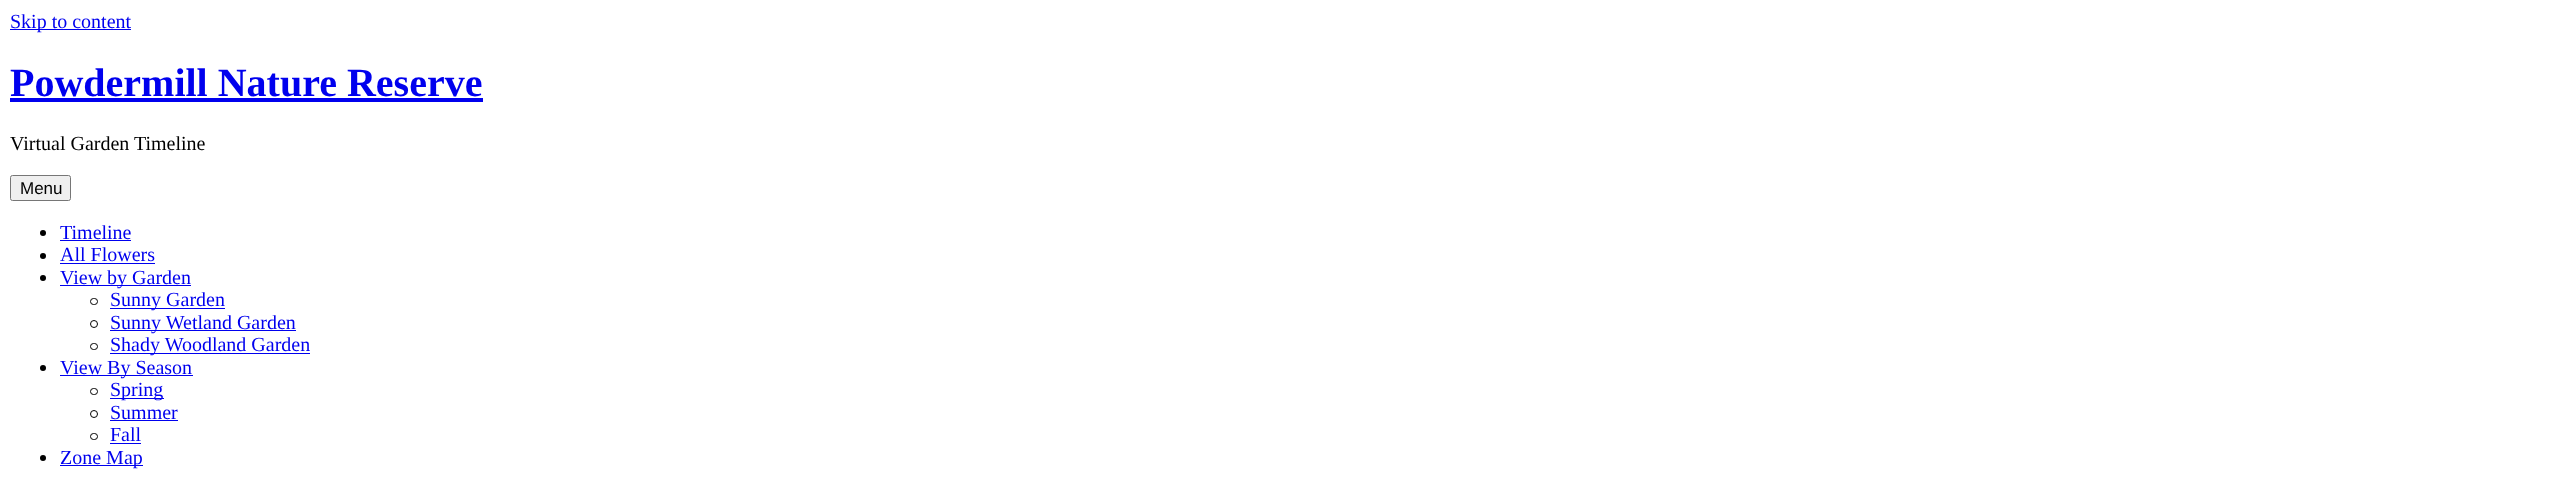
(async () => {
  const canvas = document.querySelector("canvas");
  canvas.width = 2558;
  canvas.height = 478;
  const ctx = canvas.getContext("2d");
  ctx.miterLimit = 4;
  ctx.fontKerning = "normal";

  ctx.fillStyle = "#ffffff";
  ctx.fillRect(0, 0, 2558, 478);
  ctx.fillStyle = "#0000ee";
  ctx.fillRect(10, 29, 121, 1);
  ctx.fillRect(10, 98, 473, 4);
  ctx.fillStyle = "#efefef";
  ctx.beginPath();
  ctx.roundRect(10.5, 175.5, 60, 25, 2);
  ctx.fill();
  ctx.strokeStyle = "#767676";
  ctx.stroke();
  ctx.fillStyle = "#000000";
  ctx.beginPath();
  ctx.arc(43, 233, 3, 0, Math.PI * 2);
  ctx.fill();
  ctx.fillStyle = "#0000ee";
  ctx.fillRect(60, 240, 71, 1);
  ctx.fillStyle = "#000000";
  ctx.beginPath();
  ctx.arc(43, 256, 3, 0, Math.PI * 2);
  ctx.fill();
  ctx.fillStyle = "#0000ee";
  ctx.fillRect(60, 263, 95, 1);
  ctx.fillStyle = "#000000";
  ctx.beginPath();
  ctx.arc(43, 278, 3, 0, Math.PI * 2);
  ctx.fill();
  ctx.fillStyle = "#0000ee";
  ctx.fillRect(60, 285, 131, 1);
  ctx.beginPath();
  ctx.roundRect(90.5, 298.5, 7, 6, 3);
  ctx.strokeStyle = "#000000";
  ctx.stroke();
  ctx.fillRect(110, 308, 115, 1);
  ctx.beginPath();
  ctx.arc(94, 324, 3.5, 0, Math.PI * 2);
  ctx.stroke();
  ctx.fillRect(110, 330, 186, 1);
  ctx.beginPath();
  ctx.roundRect(90.5, 343.5, 7, 6, 3);
  ctx.stroke();
  ctx.fillRect(110, 353, 200, 1);
  ctx.fillStyle = "#000000";
  ctx.beginPath();
  ctx.arc(43, 368, 3, 0, Math.PI * 2);
  ctx.fill();
  ctx.fillStyle = "#0000ee";
  ctx.fillRect(60, 375, 133, 1);
  ctx.beginPath();
  ctx.roundRect(90.5, 388.5, 7, 6, 3);
  ctx.stroke();
  ctx.fillRect(110, 398, 54, 1);
  ctx.beginPath();
  ctx.arc(94, 414, 3.5, 0, Math.PI * 2);
  ctx.stroke();
  ctx.fillRect(110, 420, 68, 1);
  ctx.beginPath();
  ctx.roundRect(90.5, 433.5, 7, 6, 3);
  ctx.stroke();
  ctx.fillRect(110, 443, 31, 1);
  ctx.fillStyle = "#000000";
  ctx.beginPath();
  ctx.arc(43, 458, 3, 0, Math.PI * 2);
  ctx.fill();
  ctx.fillStyle = "#0000ee";
  ctx.fillRect(60, 465, 83, 1);
  ctx.font = "20px Liberation Serif";
  ctx.fillText("Skip to content", 10, 28);
  ctx.font = "bold 40px Liberation Serif";
  ctx.fillText("Powdermill Nature Reserve", 10, 96);
  ctx.font = "20px Liberation Serif";
  ctx.fillStyle = "#000000";
  ctx.fillText("Virtual Garden Timeline", 10, 150);
  ctx.font = "17px Liberation Sans";
  ctx.fillText("Menu", 20, 194);
  ctx.font = "20px Liberation Serif";
  ctx.fillStyle = "#0000ee";
  for (const [text, x, y] of [
    ["Timeline", 60, 239],
    ["All Flowers", 60, 261],
    ["View by Garden", 60, 284],
    ["Sunny Garden", 110, 306],
    ["Sunny Wetland Garden", 110, 329],
    ["Shady Woodland Garden", 110, 351],
    ["View By Season", 60, 374],
    ["Spring", 110, 396],
    ["Summer", 110, 419],
    ["Fall", 110, 441],
    ["Zone Map", 60, 464],
  ]) {
    ctx.fillText(text, x, y);
  }
})();
